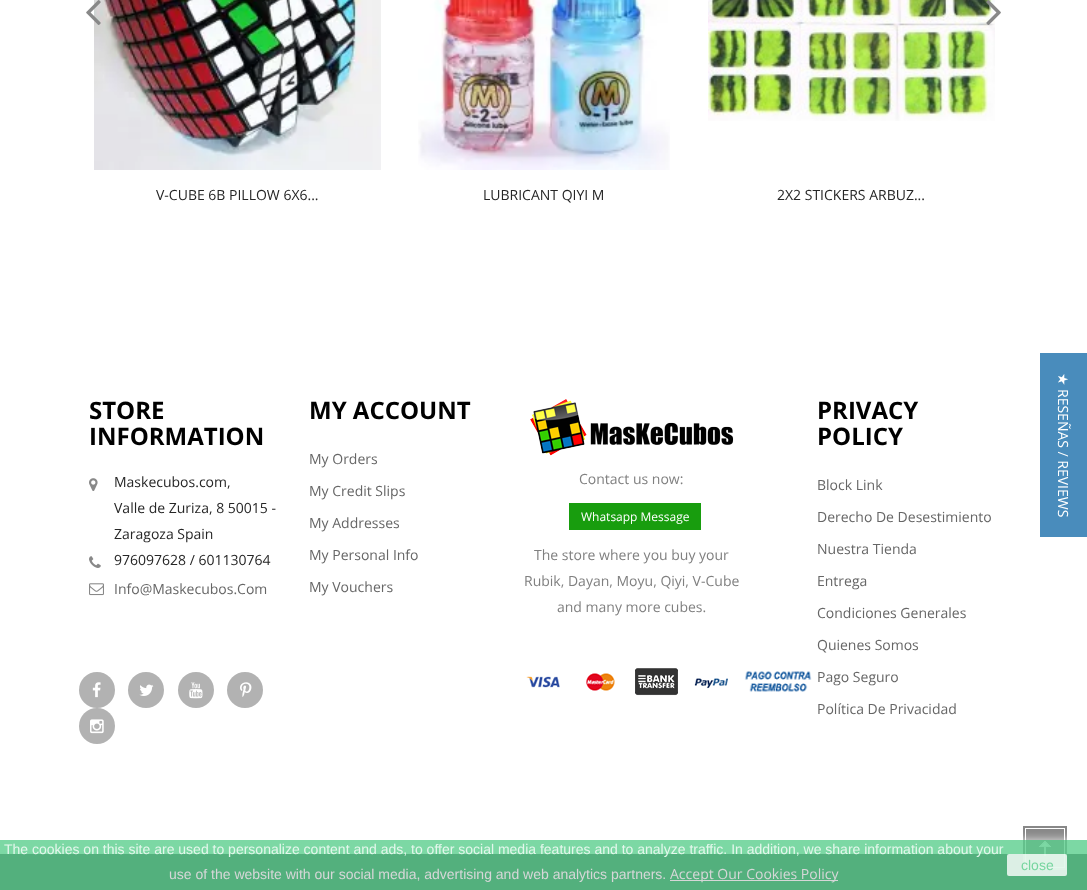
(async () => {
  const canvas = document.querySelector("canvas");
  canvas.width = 1087;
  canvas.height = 890;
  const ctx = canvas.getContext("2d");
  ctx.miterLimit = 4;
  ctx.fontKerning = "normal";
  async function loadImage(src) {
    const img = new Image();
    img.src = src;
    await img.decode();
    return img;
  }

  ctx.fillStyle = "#ffffff";
  ctx.fillRect(0, 0, 1087, 890);
  ctx.drawImage(await loadImage("img/3.png"), 94, 0, 287, 170);
  ctx.drawImage(await loadImage("img/1.png"), 86, 0, 15, 25);
  ctx.drawImage(await loadImage("img/5.png"), 708, 0, 287, 121);
  ctx.drawImage(await loadImage("img/2.png"), 986, 0, 15, 25);
  ctx.drawImage(await loadImage("img/4.png"), 418, 0, 252, 170);
  ctx.drawImage(await loadImage("img/6.png"), 89, 478, 9, 13);
  ctx.drawImage(await loadImage("img/7.png"), 89, 556, 12, 12);
  ctx.drawImage(await loadImage("img/8.png"), 89, 583, 15, 13);
  ctx.drawImage(await loadImage("img/9.png"), 530, 399, 204, 57);
  ctx.fillStyle = "#189d0e";
  ctx.fillRect(569, 503, 132, 27);
  ctx.drawImage(await loadImage("img/10.png"), 526, 668, 286, 28);
  ctx.fillStyle = "#b2b2b2";
  ctx.beginPath();
  ctx.arc(97, 690, 18, 0, Math.PI * 2);
  ctx.fill();
  ctx.drawImage(await loadImage("img/11.png"), 92, 682, 9, 16);
  ctx.beginPath();
  ctx.arc(146, 690, 18, 0, Math.PI * 2);
  ctx.fill();
  ctx.drawImage(await loadImage("img/12.png"), 139, 684, 15, 12);
  ctx.beginPath();
  ctx.arc(196, 690, 18, 0, Math.PI * 2);
  ctx.fill();
  ctx.drawImage(await loadImage("img/13.png"), 189, 682, 14, 17);
  ctx.beginPath();
  ctx.arc(245, 690, 18, 0, Math.PI * 2);
  ctx.fill();
  ctx.drawImage(await loadImage("img/14.png"), 240, 682, 12, 15);
  ctx.beginPath();
  ctx.arc(97, 726, 18, 0, Math.PI * 2);
  ctx.fill();
  ctx.drawImage(await loadImage("img/15.png"), 90, 719, 14, 15);
  ctx.fillStyle = "#34373c";
  ctx.fillRect(0, 854, 1087, 36);
  ctx.fillStyle = "#888888";
  ctx.fillRect(1023, 826, 44, 44);
  ctx.drawImage(await loadImage("img/16.png"), 1039, 841, 12, 15);
  ctx.strokeStyle = "#ffffff";
  ctx.strokeRect(1025.5, 828.5, 39, 39);
  ctx.save();
  ctx.beginPath();
  ctx.rect(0, 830, 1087, 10);
  ctx.clip();
  ctx.fillStyle = "rgba(255, 255, 255, 0.8)";
  ctx.filter = "blur(5px)";
  ctx.beginPath();
  ctx.rect(0, 840, 1087, 50);
  ctx.fill();
  ctx.filter = "none";
  ctx.restore();
  ctx.fillStyle = "rgba(91, 206, 141, 0.8)";
  ctx.fillRect(0, 840, 1087, 50);
  ctx.fillStyle = "#d6d7d8";
  ctx.fillRect(670, 880, 168, 1);
  ctx.fillStyle = "rgba(255, 255, 255, 0.8)";
  ctx.beginPath();
  ctx.roundRect(1007, 854, 60, 22, 2);
  ctx.fill();
  ctx.fillStyle = "#498cbc";
  ctx.fillRect(1040, 353, 47, 184);
  ctx.font = "14px Open Sans";
  ctx.fillStyle = "#262626";
  for (const [text, x, y] of [
    ["V-CUBE 6B PILLOW 6X6...", 156, 200],
    ["LUBRICANT QIYI M", 483, 200],
    ["2X2 STICKERS ARBUZ...", 777, 200],
  ]) {
    ctx.fillText(text, x, y);
  }
  ctx.font = "bold 24px Open Sans";
  ctx.fillStyle = "#000000";
  ctx.fillText("STORE", 89, 419);
  ctx.fillText("INFORMATION", 89, 445);
  ctx.font = "14px Open Sans";
  ctx.fillStyle = "#262626";
  for (const [text, x, y] of [
    ["Maskecubos.com,", 114, 487],
    ["Valle de Zuriza, 8 50015 -", 114, 513],
    ["Zaragoza Spain", 114, 539],
    ["976097628 / 601130764", 114, 565],
  ]) {
    ctx.fillText(text, x, y);
  }
  ctx.fillStyle = "#666666";
  ctx.fillText("Info@Maskecubos.Com", 114, 594);
  ctx.font = "bold 24px Open Sans";
  ctx.fillStyle = "#000000";
  ctx.fillText("MY ACCOUNT", 309, 419);
  ctx.font = "14px Open Sans";
  ctx.fillStyle = "#666666";
  for (const [text, x, y] of [
    ["My Orders", 309, 464],
    ["My Credit Slips", 309, 496],
    ["My Addresses", 309, 528],
    ["My Personal Info", 309, 560],
    ["My Vouchers", 309, 592],
  ]) {
    ctx.fillText(text, x, y);
  }
  ctx.fillStyle = "#808080";
  ctx.fillText("Contact us now:", 579, 484);
  ctx.font = "12px Open Sans";
  ctx.fillStyle = "#ffffff";
  ctx.fillText("Whatsapp Message", 581, 521);
  ctx.font = "14px Open Sans";
  ctx.fillStyle = "#808080";
  for (const [text, x, y] of [
    ["The store where you buy your", 534, 560],
    ["Rubik, Dayan, Moyu, Qiyi, V-Cube", 524, 586],
    ["and many more cubes.", 557, 612],
  ]) {
    ctx.fillText(text, x, y);
  }
  ctx.font = "bold 24px Open Sans";
  ctx.fillStyle = "#000000";
  ctx.fillText("PRIVACY", 817, 419);
  ctx.fillText("POLICY", 817, 445);
  ctx.font = "14px Open Sans";
  ctx.fillStyle = "#666666";
  for (const [text, x, y] of [
    ["Block Link", 817, 490],
    ["Derecho De Desestimiento", 817, 522],
    ["Nuestra Tienda", 817, 554],
    ["Entrega", 817, 586],
    ["Condiciones Generales", 817, 618],
    ["Quienes Somos", 817, 650],
    ["Pago Seguro", 817, 682],
    ["Política De Privacidad", 817, 714],
  ]) {
    ctx.fillText(text, x, y);
  }
  ctx.font = "14px Liberation Sans";
  ctx.fillStyle = "#e4f7ec";
  ctx.fillText("The cookies on this site are used to personalize content and ads, to offer social media features and to analyze traffic. In addition, we share information about your", 4, 854);
  ctx.fillStyle = "#d6d7d8";
  ctx.fillText("use of the website with our social media, advertising and web analytics partners.", 169, 879);
  ctx.font = "14px Open Sans";
  ctx.fillText("Accept Our Cookies Policy", 670, 879);
  ctx.font = "14px Liberation Sans";
  ctx.fillStyle = "#76d59f";
  ctx.fillText("close", 1021, 870);
  ctx.font = "14px DejaVu Sans";
  ctx.fillStyle = "#ffffff";
  ctx.save();
  ctx.translate(1058, 373);
  ctx.rotate(90 * Math.PI / 180);
  ctx.fillText("★", 0, 0);
  ctx.restore();
  ctx.font = "14px Open Sans";
  ctx.save();
  ctx.translate(1058, 389);
  ctx.rotate(90 * Math.PI / 180);
  ctx.fillText("RESEÑAS / REVIEWS", 0, 0);
  ctx.restore();
})();
